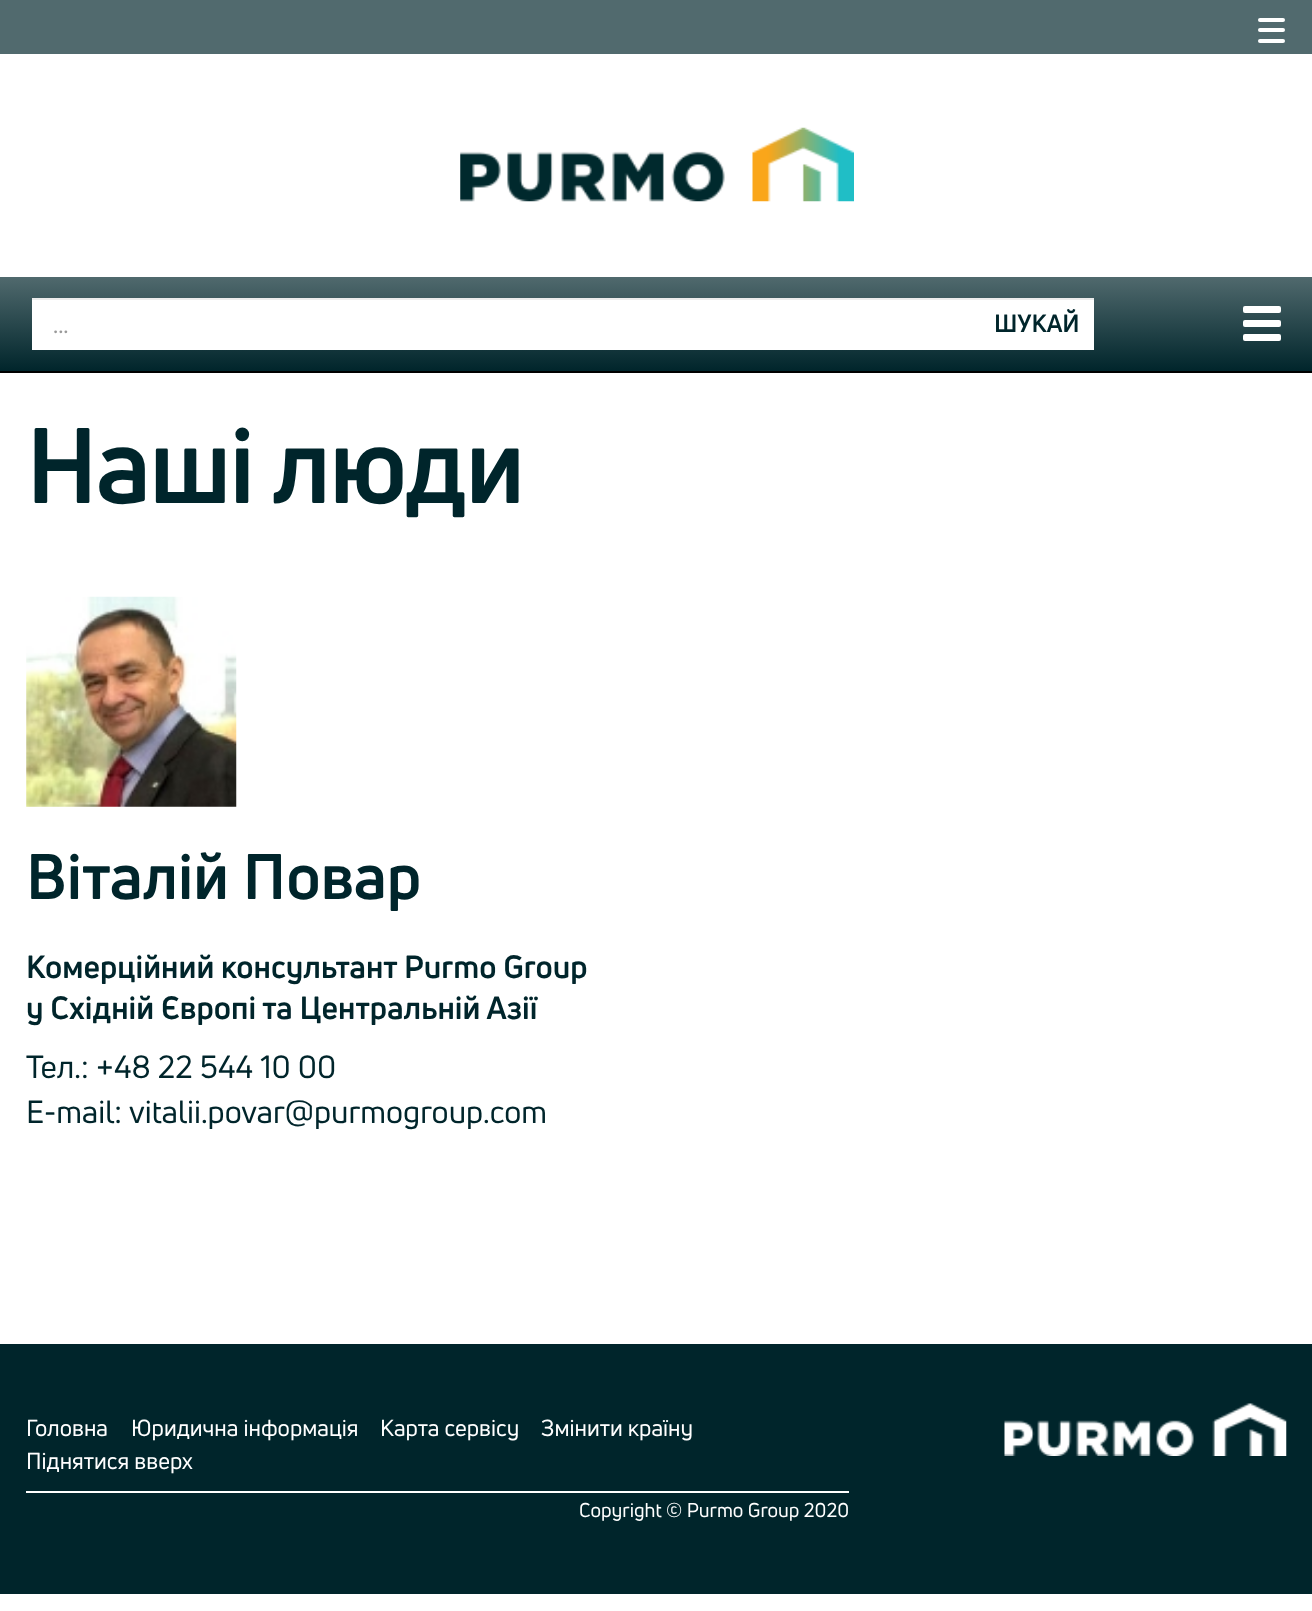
(async () => {
  const canvas = document.querySelector("canvas");
  canvas.width = 1312;
  canvas.height = 1611;
  const ctx = canvas.getContext("2d");
  ctx.miterLimit = 4;
  ctx.fontKerning = "normal";
  async function loadImage(src) {
    const img = new Image();
    img.src = src;
    await img.decode();
    return img;
  }
  let gradient;

  ctx.fillStyle = "#ffffff";
  ctx.fillRect(0, 0, 1312, 1611);
  ctx.fillStyle = "#516a6e";
  ctx.fillRect(0, 0, 1312, 54);
  ctx.fillStyle = "#ffffff";
  ctx.beginPath();
  ctx.roundRect(1258, 18, 27, 4, 2);
  ctx.fill();
  ctx.beginPath();
  ctx.roundRect(1258, 28, 27, 4, 2);
  ctx.fill();
  ctx.beginPath();
  ctx.roundRect(1258, 39, 27, 4, 2);
  ctx.fill();
  ctx.drawImage(await loadImage("img/1.png"), 460, 127, 394, 75);
  gradient = ctx.createLinearGradient(656, 276, 656, 371);
  gradient.addColorStop(0, "#516a6e");
  gradient.addColorStop(1, "#00252b");
  ctx.fillStyle = gradient;
  ctx.fillRect(0, 277, 1312, 94);
  for (const [x, y, w, h, color] of [
    [0, 371, 1312, 2, "#000000"],
    [32, 300, 1062, 50, "#ffffff"],
    [32, 298, 1062, 2, "#ececec"],
  ]) {
    ctx.fillStyle = color;
    ctx.fillRect(x, y, w, h);
  }
  ctx.fillStyle = "#ffffff";
  ctx.beginPath();
  ctx.roundRect(1243, 306, 38, 7, 2);
  ctx.fill();
  ctx.beginPath();
  ctx.roundRect(1243, 320, 38, 7, 2);
  ctx.fill();
  ctx.beginPath();
  ctx.roundRect(1243, 334, 38, 7, 2);
  ctx.fill();
  ctx.drawImage(await loadImage("img/2.png"), 26, 596, 211, 211);
  ctx.fillStyle = "#00252b";
  ctx.fillRect(0, 1344, 1312, 250);
  ctx.fillStyle = "#ffffff";
  ctx.fillRect(26, 1491, 823, 2);
  ctx.drawImage(await loadImage("img/3.png"), 1004, 1403, 283, 53);
  ctx.font = "24.5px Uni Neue";
  ctx.fillStyle = "#999999";
  ctx.fillText("...", 53, 333);
  ctx.font = "bold 24.5px Uni Neue";
  ctx.fillStyle = "#00252b";
  ctx.fillText("ШУКАЙ", 994, 332);
  ctx.letterSpacing = "-1.75px";
  ctx.font = "bold 105px Uni Neue";
  ctx.fillText("Наші люди", 26, 503);
  ctx.letterSpacing = "0px";
  ctx.font = "bold 63px Uni Neue";
  ctx.fillText("Віталій Повар", 26, 899);
  ctx.font = "bold 31.5px Uni Neue";
  ctx.fillText("Комерційний консультант Purmo Group", 26, 978);
  ctx.fillText("у Східній Європі та Центральній Азії", 26, 1019);
  ctx.font = "31.5px Uni Neue";
  for (const [text, x, y] of [
    ["Teл.: +48 22 544 10 00", 26, 1078],
    ["E-mail:", 26, 1123],
    ["vitalii.povar@purmogroup.com", 129, 1123],
  ]) {
    ctx.fillText(text, x, y);
  }
  ctx.font = "22.75px Uni Neue";
  ctx.fillStyle = "#ffffff";
  for (const [text, x, y] of [
    ["Головна", 26, 1436],
    ["Юридична інформація", 131, 1436],
    ["Карта сервісу", 380, 1436],
    ["Змінити країну", 541, 1436],
    ["Піднятися вверх", 26, 1469],
  ]) {
    ctx.fillText(text, x, y);
  }
  ctx.font = "19.5px Uni Neue";
  ctx.fillText("Copyright © Purmo Group 2020", 579, 1517);
})();
